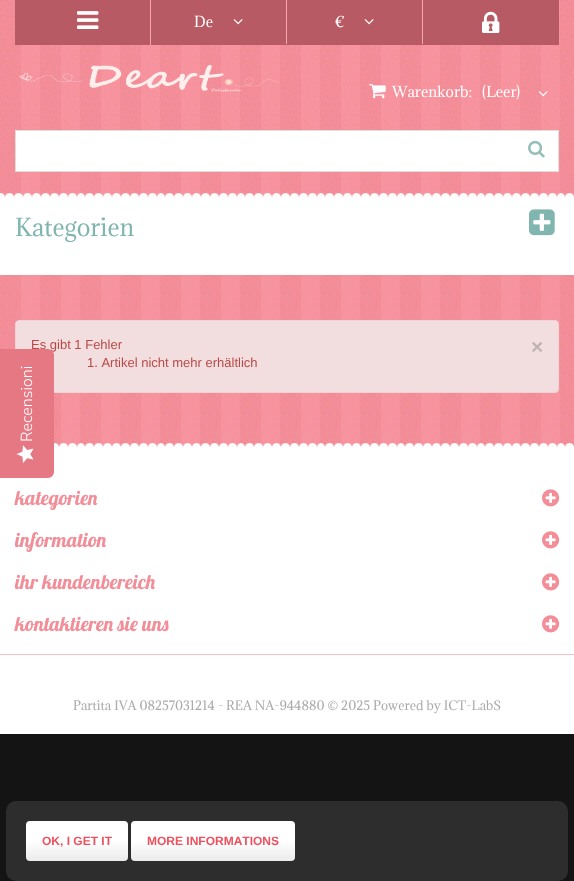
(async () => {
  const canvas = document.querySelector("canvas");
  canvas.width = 574;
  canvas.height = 881;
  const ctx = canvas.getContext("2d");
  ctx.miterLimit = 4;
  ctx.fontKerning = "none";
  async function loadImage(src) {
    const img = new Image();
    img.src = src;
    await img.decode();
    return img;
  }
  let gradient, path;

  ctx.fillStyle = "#141414";
  ctx.fillRect(0, 0, 574, 881);
  ctx.fillStyle = "#ffffff";
  ctx.fillRect(0, 200, 574, 75);
  ctx.drawImage(await loadImage("img/1.png"), 0, 0, 574, 200);
  ctx.fillStyle = "#b75a64";
  ctx.fillRect(15, 0, 135, 45);
  ctx.fillStyle = "#f9a3ae";
  ctx.fillRect(150, 0, 1, 45);
  ctx.drawImage(await loadImage("img/2.png"), 77, 11, 22, 18);
  ctx.fillStyle = "#b75a64";
  ctx.fillRect(151, 0, 408, 45);
  ctx.fillStyle = "#f9a3ae";
  ctx.fillRect(286, 0, 1, 44);
  ctx.drawImage(await loadImage("img/3.png"), 233, 19, 10, 6);
  ctx.fillRect(422, 0, 1, 44);
  ctx.drawImage(await loadImage("img/3.png"), 364, 19, 10, 6);
  ctx.drawImage(await loadImage("img/4.png"), 482, 11, 18, 22);
  ctx.drawImage(await loadImage("img/5.png"), 19, 65, 260, 27);
  ctx.drawImage(await loadImage("img/6.png"), 369, 84, 17, 15);
  ctx.drawImage(await loadImage("img/7.png"), 538, 91, 10, 6);
  for (const [x, y, w, h, color] of [
    [16, 131, 542, 40, "#ffffff"],
    [15, 130, 544, 1, "#dedede"],
    [15, 171, 500, 1, "#dedede"],
    [15, 130, 1, 42, "#dedede"],
    [558, 130, 1, 42, "#dedede"],
    [515, 171, 44, 1, "#dedede"],
  ]) {
    ctx.fillStyle = color;
    ctx.fillRect(x, y, w, h);
  }
  ctx.drawImage(await loadImage("img/8.png"), 528, 140, 17, 18);
  ctx.drawImage(await loadImage("img/9.png"), 529, 209, 26, 27);
  ctx.drawImage(await loadImage("img/10.png"), 0, 275, 574, 168);
  ctx.fillStyle = "#f2dede";
  ctx.beginPath();
  ctx.roundRect(15.5, 320.5, 543, 72, 3.5);
  ctx.fill();
  ctx.strokeStyle = "#eed3d7";
  ctx.stroke();
  ctx.fillStyle = "#ffffff";
  ctx.fillRect(0, 447, 574, 287);
  ctx.drawImage(await loadImage("img/11.png"), 54, 443, 520, 4);
  ctx.drawImage(await loadImage("img/12.png"), 542, 489, 18, 18);
  ctx.drawImage(await loadImage("img/12.png"), 542, 531, 18, 18);
  ctx.drawImage(await loadImage("img/12.png"), 542, 573, 18, 18);
  ctx.drawImage(await loadImage("img/12.png"), 542, 615, 18, 18);
  ctx.fillStyle = "#fabec5";
  ctx.fillRect(0, 654, 574, 1);
  ctx.fillStyle = "#2d2d2d";
  ctx.beginPath();
  ctx.roundRect(6, 801, 562, 80, 10);
  ctx.fill();
  gradient = ctx.createLinearGradient(77, 821, 77, 861);
  gradient.addColorStop(0, "#ffffff");
  gradient.addColorStop(0.5, "#ffffff");
  gradient.addColorStop(1, "#ebebeb");
  ctx.fillStyle = gradient;
  ctx.beginPath();
  ctx.roundRect(26, 821, 102, 40, 4);
  ctx.fill();
  gradient = ctx.createLinearGradient(213, 821, 213, 861);
  gradient.addColorStop(0, "#ffffff");
  gradient.addColorStop(0.5, "#ffffff");
  gradient.addColorStop(1, "#ebebeb");
  ctx.fillStyle = gradient;
  ctx.beginPath();
  ctx.roundRect(131, 821, 164, 40, 4);
  ctx.fill();
  ctx.font = "14px Adamina";
  ctx.fillStyle = "#ffffff";
  for (const [text, x, y] of [
    ["De", 194, 27],
    ["€", 335, 27],
    ["Warenkorb:", 392, 97],
    ["(Leer)", 482, 97],
  ]) {
    ctx.fillText(text, x, y);
  }
  ctx.font = "23px Adamina";
  ctx.fillStyle = "#80b6af";
  ctx.fillText("Kategorien", 15, 236);
  ctx.font = "13px Liberation Sans";
  ctx.fillStyle = "#b94a48";
  ctx.fillText("Es gibt 1 Fehler", 31, 349);
  ctx.font = "bold 21px Liberation Sans";
  ctx.fillStyle = "#c2b2b2";
  ctx.fillText("×", 531, 354);
  ctx.font = "13px Liberation Sans";
  ctx.fillStyle = "#b94a48";
  ctx.fillText("1. Artikel nicht mehr erhältlich", 87, 367);
  ctx.font = "20px Lobster";
  ctx.fillStyle = "#f38d98";
  for (const [text, x, y] of [
    ["kategorien", 15, 505],
    ["information", 15, 547],
    ["ihr kundenbereich", 15, 589],
    ["kontaktieren sie uns", 15, 631],
  ]) {
    ctx.fillText(text, x, y);
  }
  ctx.font = "12px Adamina";
  ctx.fillStyle = "#aaaaaa";
  ctx.fillText("Partita IVA 08257031214 - REA NA-944880 © 2025 Powered by ICT-LabS", 73, 710);
  ctx.fillStyle = "#e67884";
  path = new Path2D("M0 478V349H48C51 349 54 352 54 355V472C54 475 51 478 48 478Z");
  ctx.fill(path);
  ctx.font = "300 16px Nunito Sans";
  ctx.fillStyle = "#ffffff";
  ctx.save();
  ctx.translate(32, 442);
  ctx.rotate(-90 * Math.PI / 180);
  ctx.fillText("Recensioni", 0, 0);
  ctx.restore();
  ctx.drawImage(await loadImage("img/13.png"), 16, 445, 18, 18);
  ctx.font = "bold 12px Liberation Sans";
  ctx.fillStyle = "#ed515e";
  ctx.fillText("OK, I GET IT", 42, 845);
  ctx.fillText("MORE INFORMATIONS", 147, 845);
})();
